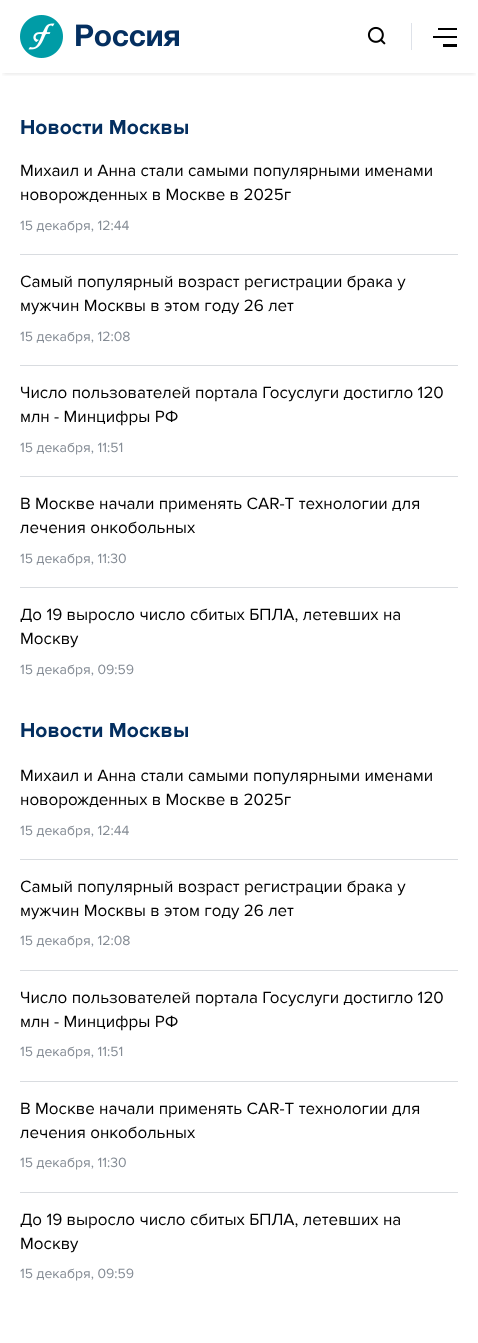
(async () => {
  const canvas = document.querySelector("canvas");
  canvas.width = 478;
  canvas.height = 1343;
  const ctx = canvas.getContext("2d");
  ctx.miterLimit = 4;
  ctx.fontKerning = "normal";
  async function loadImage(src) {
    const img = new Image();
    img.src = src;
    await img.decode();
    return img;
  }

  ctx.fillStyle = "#ffffff";
  ctx.fillRect(0, 0, 478, 1343);
  ctx.save();
  ctx.beginPath();
  ctx.rect(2, 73, 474, 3);
  ctx.clip();
  ctx.fillStyle = "rgba(0, 0, 0, 0.1)";
  ctx.filter = "blur(2px)";
  ctx.beginPath();
  ctx.rect(3, 7, 472, 67);
  ctx.fill();
  ctx.filter = "none";
  ctx.restore();
  ctx.drawImage(await loadImage("img/1.png"), 20, 15, 159, 43);
  ctx.fillStyle = "#dee2e9";
  ctx.fillRect(411, 23, 1, 27);
  ctx.drawImage(await loadImage("img/2.png"), 367, 26, 19, 19);
  for (const [x, y, w, h, color] of [
    [438, 28, 19, 2, "#000000"],
    [433, 36, 24, 2, "#000000"],
    [443, 44, 14, 3, "#000000"],
    [20, 254, 438, 1, "#d9dce0"],
    [20, 365, 438, 1, "#d9dce0"],
    [20, 476, 438, 1, "#d9dce0"],
    [20, 587, 438, 1, "#d9dce0"],
    [20, 859, 438, 1, "#d9dce0"],
    [20, 970, 438, 1, "#d9dce0"],
    [20, 1081, 438, 1, "#d9dce0"],
    [20, 1192, 438, 1, "#d9dce0"],
  ]) {
    ctx.fillStyle = color;
    ctx.fillRect(x, y, w, h);
  }
  ctx.font = "bold 21px Proxima Nova";
  ctx.fillStyle = "#042f60";
  ctx.fillText("Новости Москвы", 20, 134);
  ctx.font = "17px Proxima Nova";
  ctx.fillStyle = "#000000";
  ctx.fillText("Михаил и Анна стали самыми популярными именами", 20, 176);
  ctx.fillText("новорожденных в Москве в 2025г", 20, 200);
  ctx.font = "14px Proxima Nova";
  ctx.fillStyle = "#858c95";
  ctx.fillText("15 декабря, 12:44", 20, 230);
  ctx.font = "17px Proxima Nova";
  ctx.fillStyle = "#000000";
  ctx.fillText("Самый популярный возраст регистрации брака у", 20, 287);
  ctx.fillText("мужчин Москвы в этом году 26 лет", 20, 311);
  ctx.font = "14px Proxima Nova";
  ctx.fillStyle = "#858c95";
  ctx.fillText("15 декабря, 12:08", 20, 341);
  ctx.font = "17px Proxima Nova";
  ctx.fillStyle = "#000000";
  ctx.fillText("Число пользователей портала Госуслуги достигло 120", 20, 398);
  ctx.fillText("млн - Минцифры РФ", 20, 422);
  ctx.font = "14px Proxima Nova";
  ctx.fillStyle = "#858c95";
  ctx.fillText("15 декабря, 11:51", 20, 452);
  ctx.font = "17px Proxima Nova";
  ctx.fillStyle = "#000000";
  ctx.fillText("В Москве начали применять CAR-T технологии для", 20, 509);
  ctx.fillText("лечения онкобольных", 20, 533);
  ctx.font = "14px Proxima Nova";
  ctx.fillStyle = "#858c95";
  ctx.fillText("15 декабря, 11:30", 20, 563);
  ctx.font = "17px Proxima Nova";
  ctx.fillStyle = "#000000";
  ctx.fillText("До 19 выросло число сбитых БПЛА, летевших на", 20, 620);
  ctx.fillText("Москву", 20, 644);
  ctx.font = "14px Proxima Nova";
  ctx.fillStyle = "#858c95";
  ctx.fillText("15 декабря, 09:59", 20, 674);
  ctx.font = "bold 21px Proxima Nova";
  ctx.fillStyle = "#042f60";
  ctx.fillText("Новости Москвы", 20, 737);
  ctx.font = "17px Proxima Nova";
  ctx.fillStyle = "#000000";
  ctx.fillText("Михаил и Анна стали самыми популярными именами", 20, 781);
  ctx.fillText("новорожденных в Москве в 2025г", 20, 805);
  ctx.font = "14px Proxima Nova";
  ctx.fillStyle = "#858c95";
  ctx.fillText("15 декабря, 12:44", 20, 835);
  ctx.font = "17px Proxima Nova";
  ctx.fillStyle = "#000000";
  ctx.fillText("Самый популярный возраст регистрации брака у", 20, 892);
  ctx.fillText("мужчин Москвы в этом году 26 лет", 20, 916);
  ctx.font = "14px Proxima Nova";
  ctx.fillStyle = "#858c95";
  ctx.fillText("15 декабря, 12:08", 20, 945);
  ctx.font = "17px Proxima Nova";
  ctx.fillStyle = "#000000";
  ctx.fillText("Число пользователей портала Госуслуги достигло 120", 20, 1003);
  ctx.fillText("млн - Минцифры РФ", 20, 1027);
  ctx.font = "14px Proxima Nova";
  ctx.fillStyle = "#858c95";
  ctx.fillText("15 декабря, 11:51", 20, 1056);
  ctx.font = "17px Proxima Nova";
  ctx.fillStyle = "#000000";
  ctx.fillText("В Москве начали применять CAR-T технологии для", 20, 1114);
  ctx.fillText("лечения онкобольных", 20, 1138);
  ctx.font = "14px Proxima Nova";
  ctx.fillStyle = "#858c95";
  ctx.fillText("15 декабря, 11:30", 20, 1167);
  ctx.font = "17px Proxima Nova";
  ctx.fillStyle = "#000000";
  ctx.fillText("До 19 выросло число сбитых БПЛА, летевших на", 20, 1225);
  ctx.fillText("Москву", 20, 1249);
  ctx.font = "14px Proxima Nova";
  ctx.fillStyle = "#858c95";
  ctx.fillText("15 декабря, 09:59", 20, 1278);
})();
